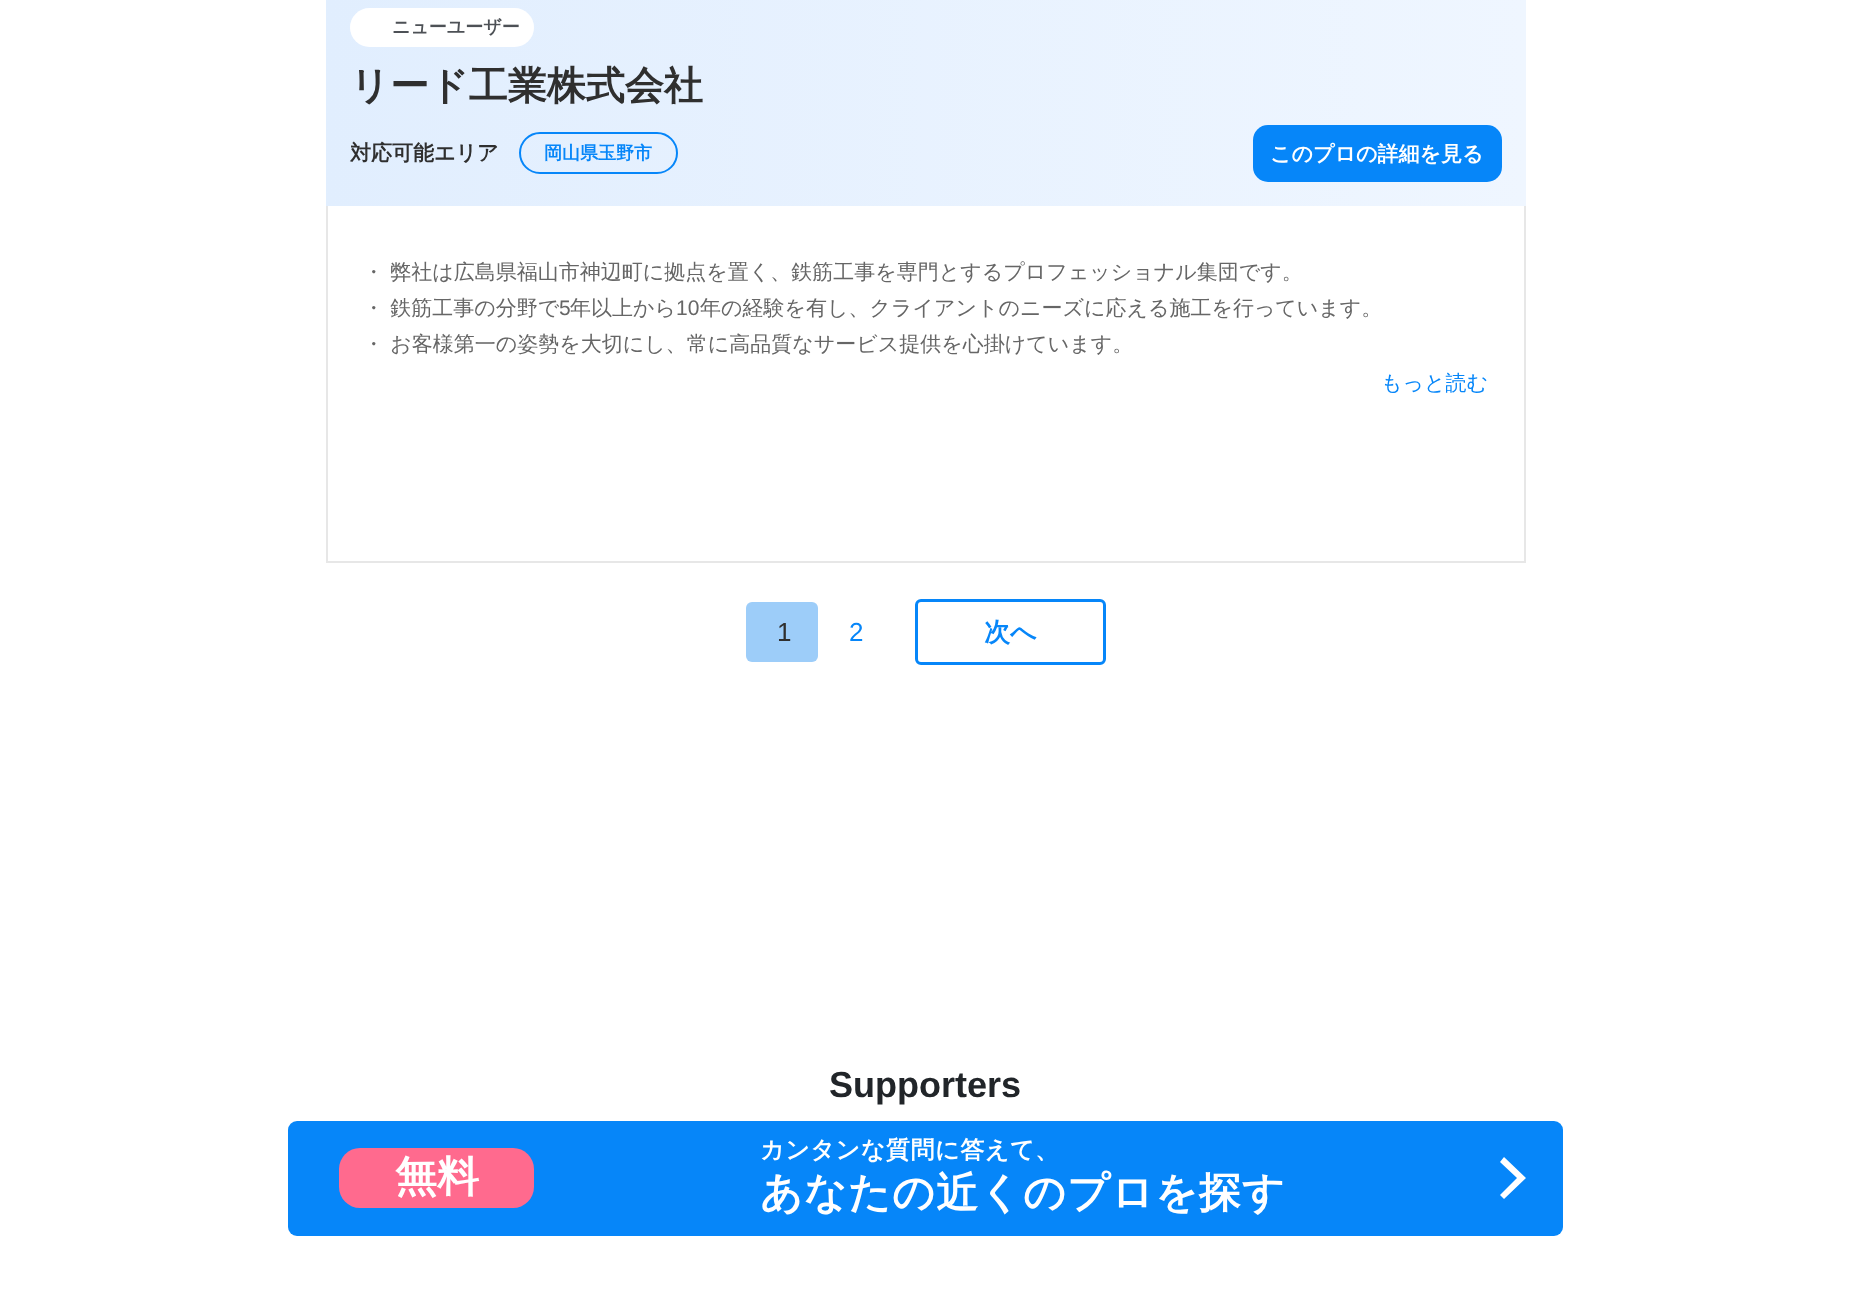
(async () => {
  const canvas = document.querySelector("canvas");
  canvas.width = 1850;
  canvas.height = 1296;
  const ctx = canvas.getContext("2d");
  ctx.miterLimit = 4;
  ctx.fontKerning = "normal";
  let gradient, path;

  ctx.fillStyle = "#ffffff";
  ctx.fillRect(0, 0, 1850, 1296);
  gradient = ctx.createLinearGradient(326, 72, 1526, 72);
  gradient.addColorStop(0, "#e1eefe");
  gradient.addColorStop(1, "#eff6ff");
  ctx.fillStyle = gradient;
  ctx.fillRect(326, 0, 1200, 206);
  ctx.fillStyle = "#ffffff";
  ctx.beginPath();
  ctx.roundRect(350, 8, 184, 39, 19.5);
  ctx.fill();
  ctx.beginPath();
  ctx.roundRect(520, 133, 157, 40, 20);
  ctx.strokeStyle = "#0686f9";
  ctx.lineWidth = 2;
  ctx.stroke();
  ctx.fillStyle = "#0686f9";
  ctx.beginPath();
  ctx.roundRect(1253, 125, 249, 57, 15);
  ctx.fill();
  for (const [x, y, w, h, color] of [
    [1524, 206, 2, 357, "#e7e7e7"],
    [326, 561, 1200, 2, "#e7e7e7"],
    [326, 206, 2, 357, "#e7e7e7"],
  ]) {
    ctx.fillStyle = color;
    ctx.fillRect(x, y, w, h);
  }
  ctx.fillStyle = "#9dcdf9";
  ctx.beginPath();
  ctx.roundRect(746, 602, 72, 60, 6);
  ctx.fill();
  ctx.beginPath();
  ctx.roundRect(916.5, 600.5, 188, 63, 4.5);
  ctx.lineWidth = 3;
  ctx.stroke();
  ctx.fillStyle = "#0686f9";
  ctx.beginPath();
  ctx.roundRect(288, 1121, 1275, 115, 9);
  ctx.fill();
  ctx.fillStyle = "#ff6a8e";
  ctx.beginPath();
  ctx.roundRect(339, 1148, 195, 60, 21);
  ctx.fill();
  ctx.fillStyle = "#ffffff";
  path = new Path2D("M1500 1195L1504 1199L1526 1178L1504 1157L1500 1162L1517 1178Z");
  ctx.fill(path);
  ctx.font = "bold 18px WenQuanYi Zen Hei";
  ctx.fillStyle = "#4d5156";
  ctx.fillText("ニューユーザー", 392, 33);
  ctx.font = "bold 39px WenQuanYi Zen Hei";
  ctx.fillStyle = "#2f2f2f";
  ctx.fillText("リード工業株式会社", 350, 99);
  ctx.font = "bold 21px WenQuanYi Zen Hei";
  ctx.fillText("対応可能エリア", 350, 160);
  ctx.font = "bold 18px WenQuanYi Zen Hei";
  ctx.fillStyle = "#0686f9";
  ctx.fillText("岡山県玉野市", 544, 159);
  ctx.font = "bold 21px WenQuanYi Zen Hei";
  ctx.fillStyle = "#ffffff";
  ctx.fillText("このプロの詳細を見る", 1270, 161);
  ctx.font = "500 21px WenQuanYi Zen Hei";
  ctx.fillStyle = "#666666";
  ctx.fillText("・ 弊社は広島県福山市神辺町に拠点を置く、鉄筋工事を専門とするプロフェッショナル集団です。", 363, 279);
  ctx.fillText("・ 鉄筋工事の分野で", 363, 315);
  ctx.font = "21px Liberation Sans";
  ctx.fillText("5", 559, 315);
  ctx.font = "500 21px WenQuanYi Zen Hei";
  ctx.fillText("年以上から", 570, 315);
  ctx.font = "21px Liberation Sans";
  ctx.fillText("10", 676, 315);
  ctx.font = "500 21px WenQuanYi Zen Hei";
  ctx.fillText("年の経験を有し、クライアントのニーズに応える施工を行っています。", 700, 315);
  ctx.fillText("・ お客様第一の姿勢を大切にし、常に高品質なサービス提供を心掛けています。", 363, 351);
  ctx.fillStyle = "#0686f9";
  ctx.fillText("もっと読む", 1381, 390);
  ctx.font = "26px Liberation Sans";
  ctx.fillStyle = "#2f2f2f";
  ctx.fillText("1", 777, 641);
  ctx.fillStyle = "#0686f9";
  ctx.fillText("2", 849, 641);
  ctx.font = "bold 26px WenQuanYi Zen Hei";
  ctx.fillText("次へ", 984, 641);
  ctx.font = "bold 36px Liberation Sans";
  ctx.fillStyle = "#212529";
  ctx.fillText("Supporters", 829, 1097);
  ctx.font = "bold 42px WenQuanYi Zen Hei";
  ctx.fillStyle = "#ffffff";
  ctx.fillText("無料", 395, 1191);
  ctx.letterSpacing = "0.6px";
  ctx.font = "bold 24px WenQuanYi Zen Hei";
  ctx.fillText("カンタンな質問に答えて、", 760, 1158);
  ctx.letterSpacing = "1px";
  ctx.font = "bold 42px WenQuanYi Zen Hei";
  ctx.fillText("あなたの近くのプロを探す", 760, 1207);
})();
